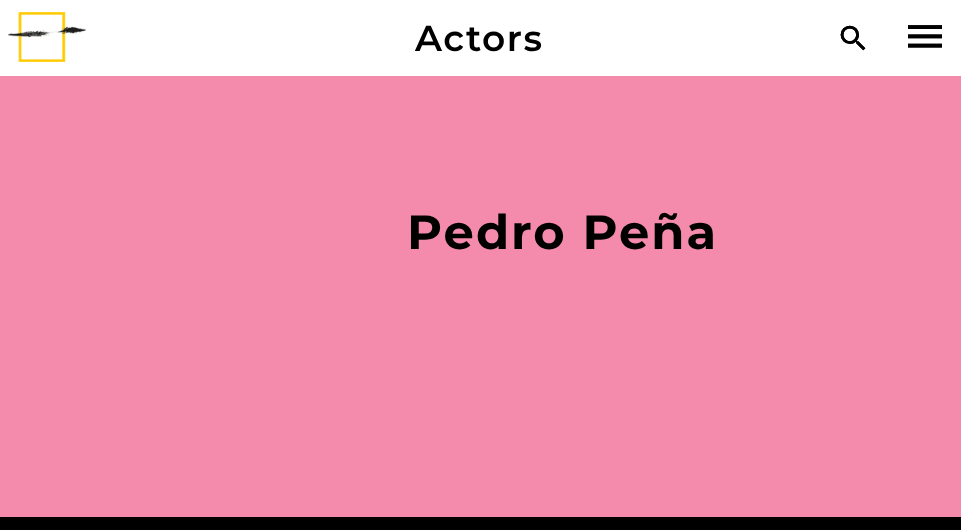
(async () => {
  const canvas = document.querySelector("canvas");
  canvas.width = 961;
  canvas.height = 530;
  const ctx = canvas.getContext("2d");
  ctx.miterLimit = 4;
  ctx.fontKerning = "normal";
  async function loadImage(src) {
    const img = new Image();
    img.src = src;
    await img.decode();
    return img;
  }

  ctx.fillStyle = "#ffffff";
  ctx.fillRect(0, 0, 961, 530);
  ctx.drawImage(await loadImage("img/1.png"), 8, 12, 78, 50);
  ctx.drawImage(await loadImage("img/2.png"), 840, 25, 26, 26);
  ctx.drawImage(await loadImage("img/3.png"), 908, 25, 34, 23);
  ctx.fillStyle = "#f48bad";
  ctx.fillRect(0, 76, 961, 441);
  ctx.fillStyle = "#000000";
  ctx.fillRect(0, 517, 961, 13);
  ctx.letterSpacing = "1.5px";
  ctx.font = "600 36px Montserrat";
  ctx.fillText("Actors", 415, 51);
  ctx.letterSpacing = "2px";
  ctx.font = "bold 48px Montserrat";
  ctx.fillText("Pedro Peña", 407, 249);
})();
